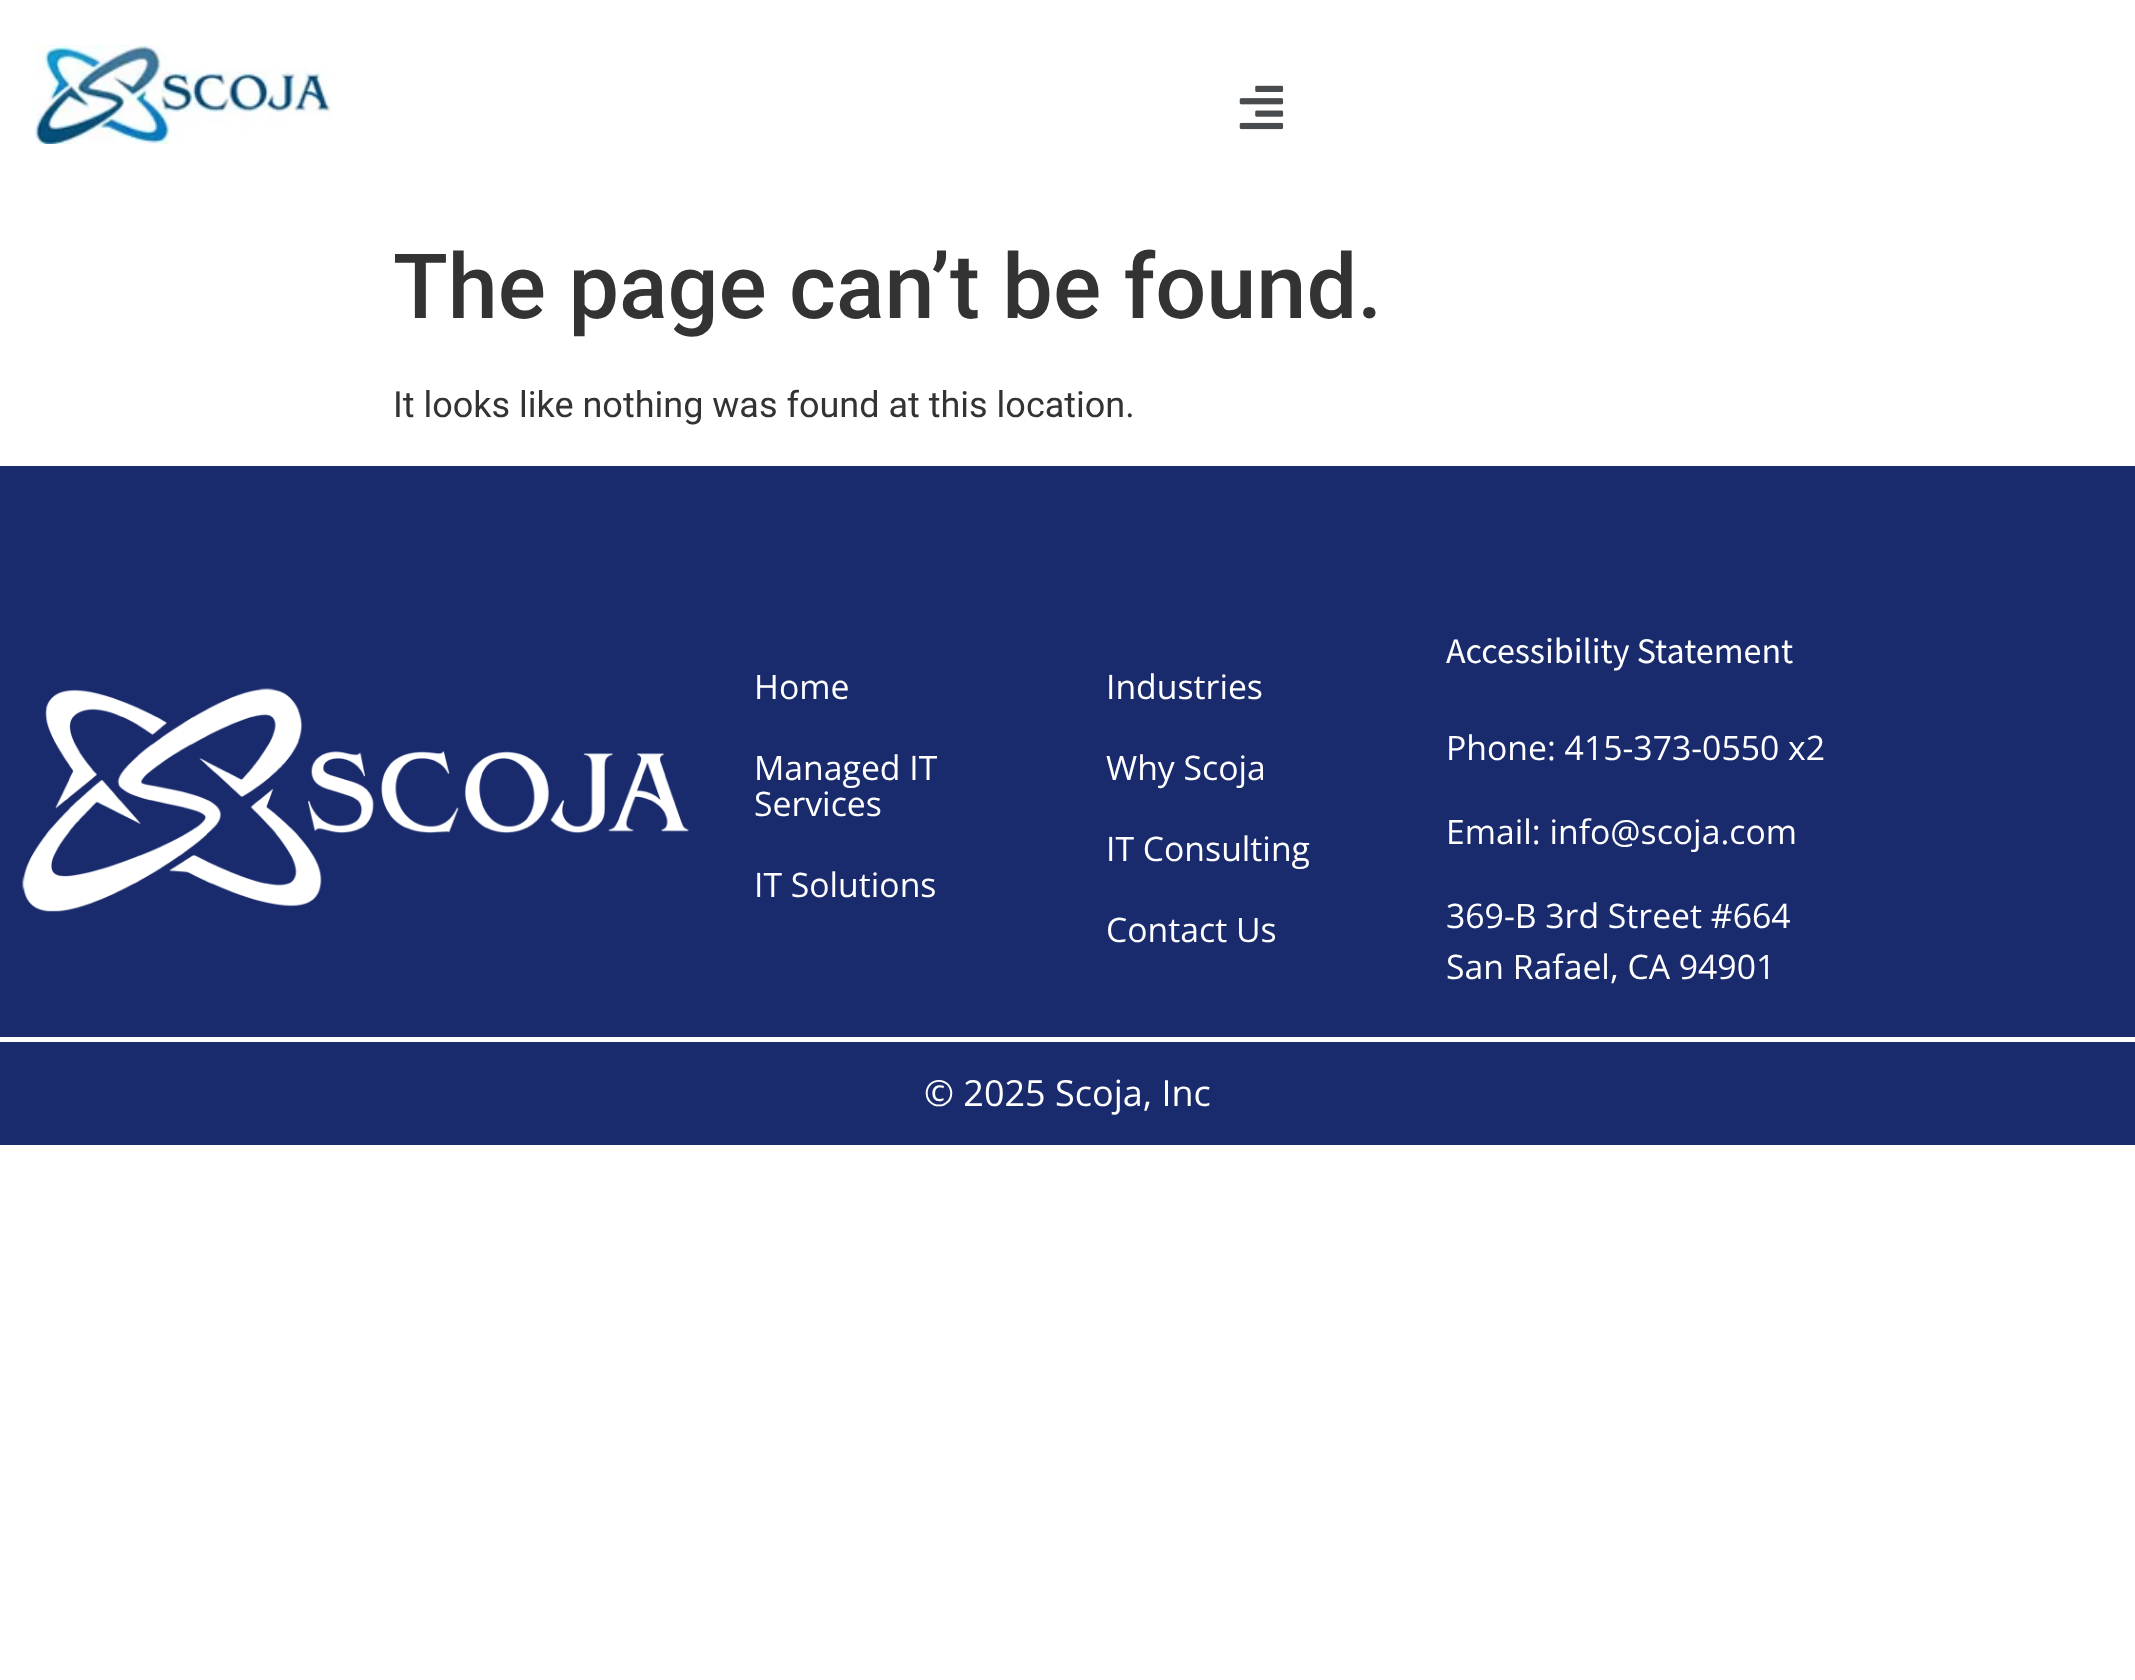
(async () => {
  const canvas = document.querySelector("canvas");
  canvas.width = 2135;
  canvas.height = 1680;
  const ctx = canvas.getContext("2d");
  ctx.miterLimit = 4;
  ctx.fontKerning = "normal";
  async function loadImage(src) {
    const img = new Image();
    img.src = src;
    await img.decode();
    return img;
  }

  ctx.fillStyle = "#ffffff";
  ctx.fillRect(0, 0, 2135, 1680);
  ctx.drawImage(await loadImage("img/1.png"), 34, 45, 298, 99);
  ctx.drawImage(await loadImage("img/2.png"), 1239, 85, 45, 45);
  ctx.fillStyle = "#1a2b6d";
  ctx.fillRect(0, 466, 2135, 571);
  ctx.drawImage(await loadImage("img/3.png"), 22, 688, 667, 224);
  ctx.fillRect(0, 1042, 2135, 103);
  ctx.font = "500 90px Roboto";
  ctx.fillStyle = "#333333";
  ctx.fillText("The page can’t be found.", 393, 318);
  ctx.font = "36px Roboto";
  ctx.fillText("It looks like nothing was found at this location.", 393, 417);
  ctx.font = "33.75px Open Sans";
  ctx.fillStyle = "#ffffff";
  for (const [text, x, y] of [
    ["Home", 754, 699],
    ["Industries", 1106, 699],
    ["Managed IT", 754, 780],
    ["Services", 754, 816],
    ["Why Scoja", 1106, 780],
    ["IT Consulting", 1106, 861],
    ["IT Solutions", 754, 897],
    ["Contact Us", 1106, 942],
  ]) {
    ctx.fillText(text, x, y);
  }
  ctx.font = "36px Source Sans Pro";
  ctx.fillText("Accessibility Statement", 1446, 663);
  ctx.font = "33.75px Open Sans";
  for (const [text, x, y] of [
    ["Phone: 415-373-0550 x2", 1446, 760],
    ["Email: info@scoja.com", 1446, 844],
    ["369-B 3rd Street #664", 1446, 928],
    ["San Rafael, CA 94901", 1446, 979],
  ]) {
    ctx.fillText(text, x, y);
  }
  ctx.font = "36px Open Sans";
  ctx.fillText("© 2025 Scoja, Inc", 924, 1106);
})();
